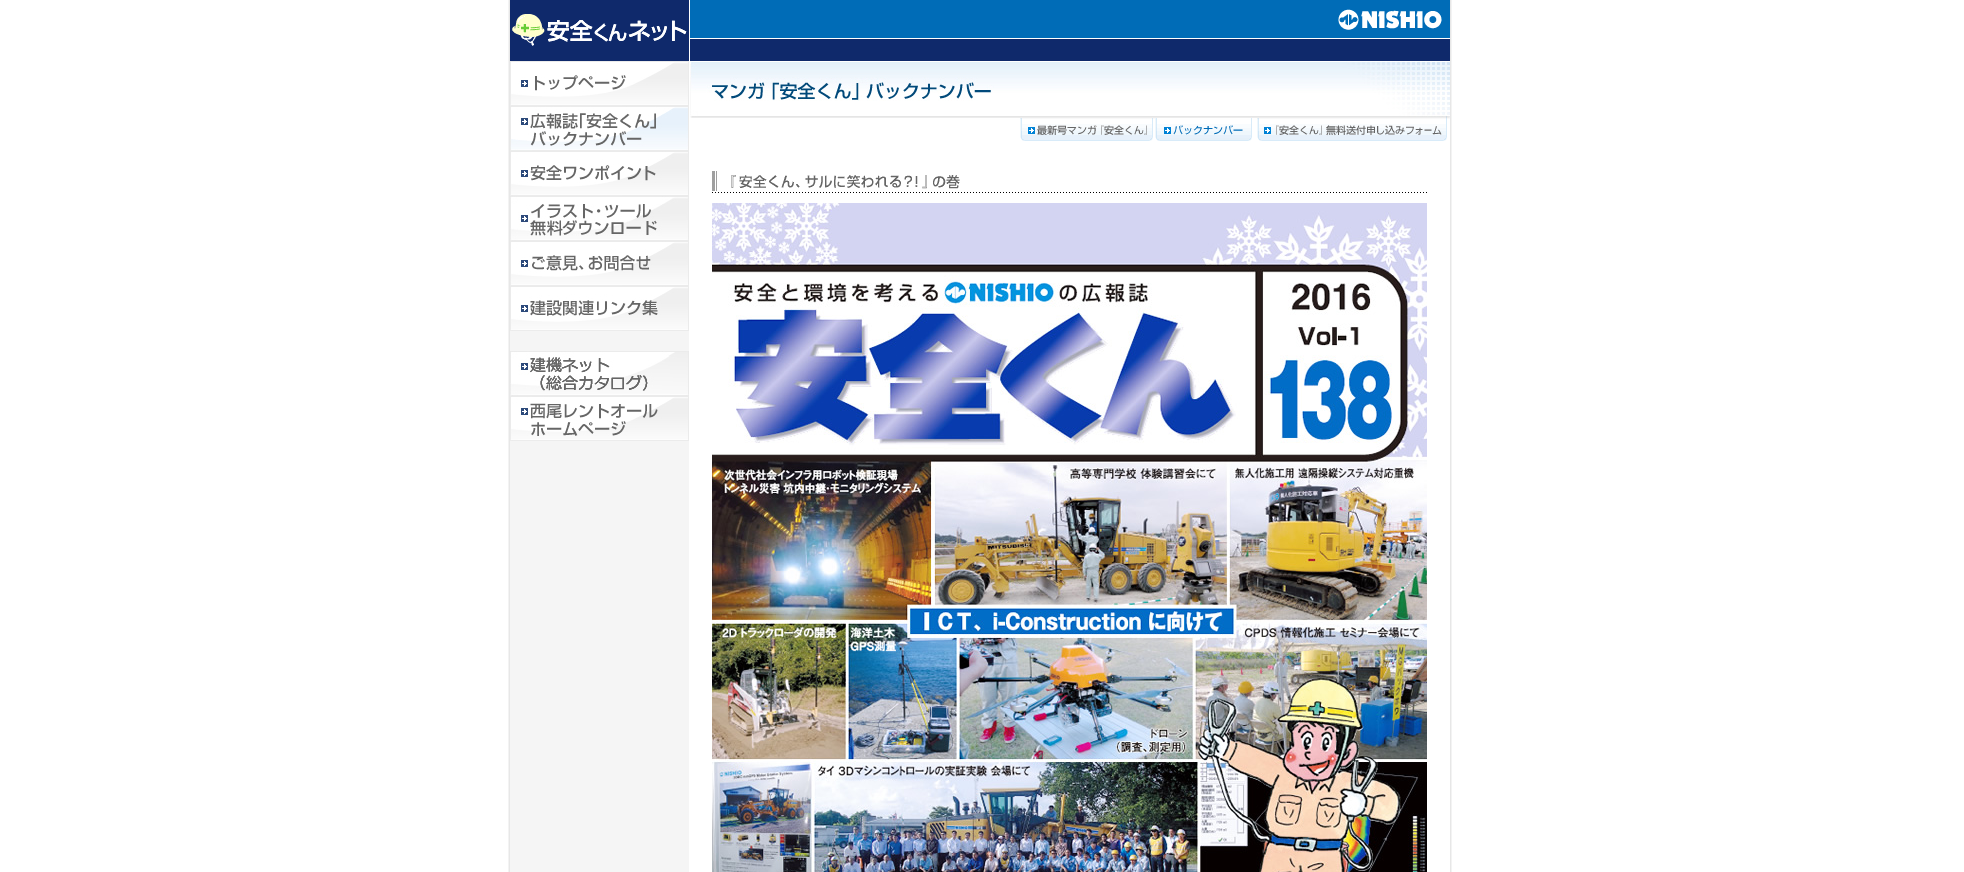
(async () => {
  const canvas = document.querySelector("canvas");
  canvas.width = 1964;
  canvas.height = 872;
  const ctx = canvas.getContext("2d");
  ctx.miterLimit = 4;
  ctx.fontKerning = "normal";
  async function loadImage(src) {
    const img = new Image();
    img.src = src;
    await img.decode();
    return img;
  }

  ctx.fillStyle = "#ffffff";
  ctx.fillRect(0, 0, 1964, 872);
  ctx.drawImage(await loadImage("img/1.png"), 508, 0, 944, 872);
  ctx.fillStyle = "#f5f5f5";
  ctx.fillRect(510, 331, 179, 541);
  ctx.drawImage(await loadImage("img/2.png"), 510, 0, 179, 61);
  ctx.drawImage(await loadImage("img/3.png"), 510, 61, 179, 45);
  ctx.drawImage(await loadImage("img/4.png"), 510, 106, 179, 45);
  ctx.drawImage(await loadImage("img/5.png"), 510, 151, 179, 45);
  ctx.drawImage(await loadImage("img/6.png"), 510, 196, 179, 45);
  ctx.drawImage(await loadImage("img/7.png"), 510, 241, 179, 45);
  ctx.drawImage(await loadImage("img/8.png"), 510, 286, 179, 45);
  ctx.drawImage(await loadImage("img/9.png"), 510, 351, 179, 45);
  ctx.drawImage(await loadImage("img/10.png"), 510, 396, 179, 45);
  ctx.fillStyle = "#006cb7";
  ctx.fillRect(690, 0, 760, 38);
  ctx.drawImage(await loadImage("img/11.png"), 1338, 9, 104, 21);
  ctx.fillStyle = "#0f296b";
  ctx.fillRect(690, 39, 760, 22);
  ctx.drawImage(await loadImage("img/12.png"), 690, 61, 760, 57);
  ctx.drawImage(await loadImage("img/13.png"), 1020, 118, 135, 23);
  ctx.drawImage(await loadImage("img/14.png"), 1155, 118, 97, 23);
  ctx.drawImage(await loadImage("img/15.png"), 1257, 118, 193, 23);
  ctx.drawImage(await loadImage("img/16.png"), 712, 171, 248, 20);
  ctx.drawImage(await loadImage("img/17.png"), 712, 192, 715, 1);
  ctx.drawImage(await loadImage("img/18.png"), 712, 203, 715, 506);
  ctx.drawImage(await loadImage("img/19.png"), 712, 709, 715, 163);
})();
